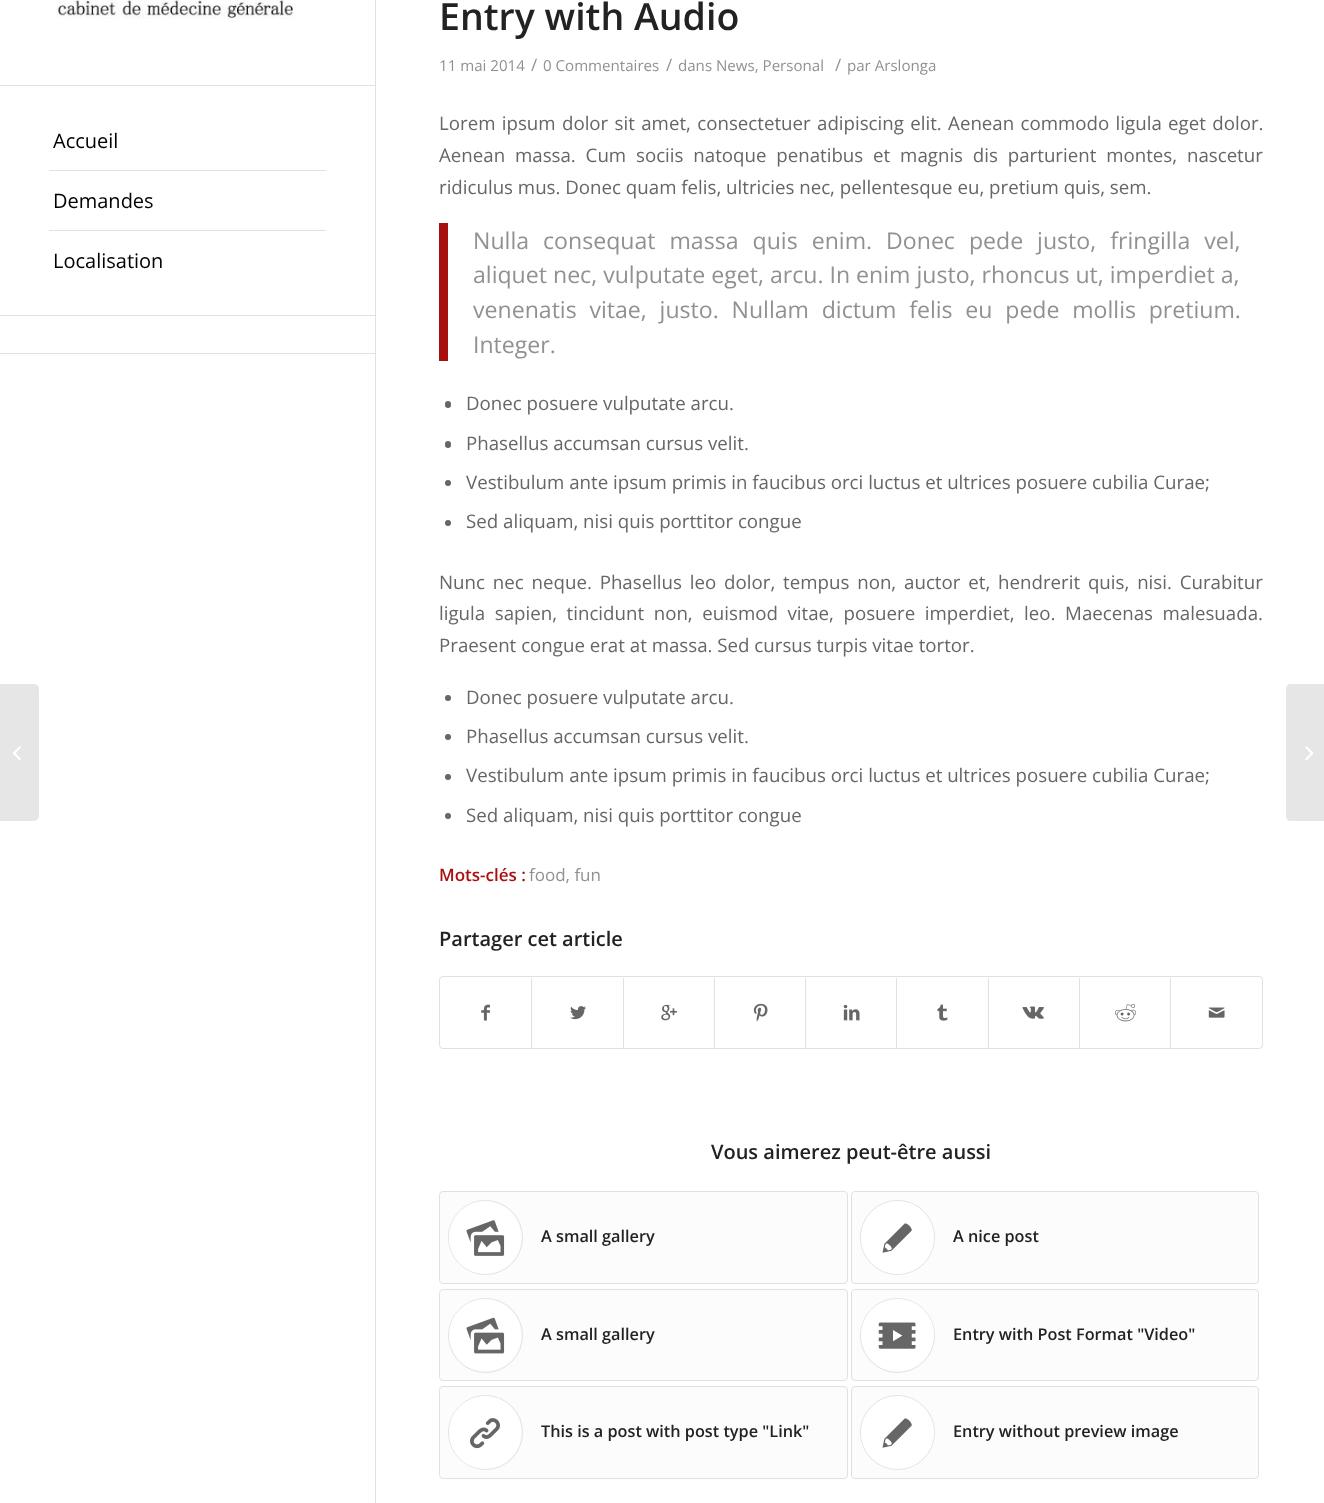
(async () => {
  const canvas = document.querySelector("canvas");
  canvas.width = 1324;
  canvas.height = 1503;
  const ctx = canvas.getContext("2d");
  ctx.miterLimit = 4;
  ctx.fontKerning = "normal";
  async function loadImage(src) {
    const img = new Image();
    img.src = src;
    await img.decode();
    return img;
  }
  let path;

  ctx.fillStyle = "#ffffff";
  ctx.fillRect(0, 0, 1324, 1503);
  ctx.fillStyle = "#e1e1e1";
  ctx.fillRect(0, 353, 375, 1);
  ctx.fillRect(0, 85, 375, 1);
  ctx.drawImage(await loadImage("img/1.png"), 56, 0, 241, 19);
  for (const [x, y, w, h, color] of [
    [49, 170, 277, 1, "#e1e1e1"],
    [49, 230, 277, 1, "#e1e1e1"],
    [0, 315, 375, 1, "#e1e1e1"],
    [375, 0, 1, 1503, "#e1e1e1"],
    [439, 223, 9, 138, "#a81010"],
  ]) {
    ctx.fillStyle = color;
    ctx.fillRect(x, y, w, h);
  }
  ctx.fillStyle = "#666666";
  ctx.beginPath();
  ctx.roundRect(445, 401, 6, 7, 3);
  ctx.fill();
  ctx.beginPath();
  ctx.roundRect(445, 441, 6, 7, 3);
  ctx.fill();
  ctx.beginPath();
  ctx.arc(448, 483, 3, 0, Math.PI * 2);
  ctx.fill();
  ctx.beginPath();
  ctx.arc(448, 523, 3, 0, Math.PI * 2);
  ctx.fill();
  ctx.beginPath();
  ctx.arc(448, 698, 3, 0, Math.PI * 2);
  ctx.fill();
  ctx.beginPath();
  ctx.arc(448, 737, 3, 0, Math.PI * 2);
  ctx.fill();
  ctx.beginPath();
  ctx.arc(448, 777, 3, 0, Math.PI * 2);
  ctx.fill();
  ctx.beginPath();
  ctx.arc(448, 816, 3, 0, Math.PI * 2);
  ctx.fill();
  ctx.beginPath();
  ctx.roundRect(439.5, 976.5, 823, 72, 3.5);
  ctx.strokeStyle = "#e1e1e1";
  ctx.stroke();
  ctx.drawImage(await loadImage("img/2.png"), 481, 1004, 9, 17);
  ctx.fillStyle = "#e1e1e1";
  ctx.fillRect(531, 978, 1, 70);
  ctx.drawImage(await loadImage("img/3.png"), 570, 1006, 16, 14);
  ctx.fillRect(623, 978, 1, 70);
  ctx.drawImage(await loadImage("img/4.png"), 661, 1004, 16, 17);
  ctx.fillRect(714, 978, 1, 70);
  ctx.drawImage(await loadImage("img/5.png"), 753, 1003, 15, 19);
  ctx.fillRect(805, 978, 1, 70);
  ctx.drawImage(await loadImage("img/6.png"), 843, 1004, 17, 17);
  ctx.fillRect(896, 978, 1, 70);
  ctx.drawImage(await loadImage("img/7.png"), 937, 1004, 11, 17);
  ctx.fillRect(988, 978, 1, 70);
  ctx.drawImage(await loadImage("img/8.png"), 1022, 1006, 22, 13);
  ctx.fillRect(1079, 978, 1, 70);
  ctx.drawImage(await loadImage("img/9.png"), 1115, 1003, 22, 19);
  ctx.fillRect(1170, 978, 1, 70);
  ctx.drawImage(await loadImage("img/10.png"), 1208, 1007, 17, 11);
  ctx.fillStyle = "#fcfcfc";
  ctx.beginPath();
  ctx.roundRect(439.5, 1191.5, 408, 92, 3.5);
  ctx.fill();
  ctx.stroke();
  ctx.beginPath();
  ctx.arc(485.5, 1237.5, 37, 0, Math.PI * 2);
  ctx.stroke();
  ctx.fillStyle = "#ffffff";
  ctx.beginPath();
  ctx.roundRect(449, 1201, 72, 73, 36);
  ctx.fill();
  ctx.drawImage(await loadImage("img/11.png"), 466, 1220, 39, 36);
  ctx.fillStyle = "#fcfcfc";
  ctx.beginPath();
  ctx.roundRect(851.5, 1191.5, 407, 92, 3.5);
  ctx.fill();
  ctx.stroke();
  ctx.beginPath();
  ctx.arc(897.5, 1237.5, 37, 0, Math.PI * 2);
  ctx.stroke();
  ctx.fillStyle = "#ffffff";
  ctx.beginPath();
  ctx.arc(897.5, 1237.5, 36.5, 0, Math.PI * 2);
  ctx.fill();
  ctx.drawImage(await loadImage("img/12.png"), 882, 1223, 30, 30);
  ctx.fillStyle = "#fcfcfc";
  ctx.beginPath();
  ctx.roundRect(439.5, 1289.5, 408, 91, 3.5);
  ctx.fill();
  ctx.stroke();
  ctx.beginPath();
  ctx.arc(485.5, 1335.5, 37, 0, Math.PI * 2);
  ctx.stroke();
  ctx.fillStyle = "#ffffff";
  ctx.beginPath();
  ctx.arc(485, 1335, 36, 0, Math.PI * 2);
  ctx.fill();
  ctx.drawImage(await loadImage("img/13.png"), 466, 1317, 39, 37);
  ctx.fillStyle = "#fcfcfc";
  ctx.beginPath();
  ctx.roundRect(851.5, 1289.5, 407, 91, 3.5);
  ctx.fill();
  ctx.stroke();
  ctx.beginPath();
  ctx.arc(897.5, 1335.5, 37, 0, Math.PI * 2);
  ctx.stroke();
  ctx.fillStyle = "#ffffff";
  ctx.beginPath();
  ctx.roundRect(861, 1299, 73, 72, 36);
  ctx.fill();
  ctx.drawImage(await loadImage("img/14.png"), 878, 1322, 38, 27);
  ctx.fillStyle = "#fcfcfc";
  ctx.beginPath();
  ctx.roundRect(439.5, 1386.5, 408, 92, 3.5);
  ctx.fill();
  ctx.stroke();
  ctx.beginPath();
  ctx.arc(485.5, 1432.5, 37, 0, Math.PI * 2);
  ctx.stroke();
  ctx.fillStyle = "#ffffff";
  ctx.beginPath();
  ctx.roundRect(449, 1396, 72, 73, 36);
  ctx.fill();
  ctx.drawImage(await loadImage("img/15.png"), 470, 1418, 30, 31);
  ctx.fillStyle = "#fcfcfc";
  ctx.beginPath();
  ctx.roundRect(851.5, 1386.5, 407, 92, 3.5);
  ctx.fill();
  ctx.stroke();
  ctx.beginPath();
  ctx.arc(897.5, 1432.5, 37, 0, Math.PI * 2);
  ctx.stroke();
  ctx.fillStyle = "#ffffff";
  ctx.beginPath();
  ctx.arc(897.5, 1432.5, 36.5, 0, Math.PI * 2);
  ctx.fill();
  ctx.drawImage(await loadImage("img/12.png"), 882, 1418, 30, 30);
  ctx.fillStyle = "#e6e6e6";
  ctx.beginPath();
  ctx.roundRect(0, 684, 39, 137, [0, 5, 5, 0]);
  ctx.fill();
  ctx.drawImage(await loadImage("img/16.png"), 13, 746, 8, 14);
  path = new Path2D("M1291 684H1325V821H1291C1288 821 1286 819 1286 816V689C1286 686 1288 684 1291 684Z");
  ctx.fill(path);
  ctx.drawImage(await loadImage("img/17.png"), 1305, 746, 9, 14);
  ctx.font = "20px Open Sans";
  ctx.fillStyle = "#000000";
  for (const [text, x, y] of [
    ["Accueil", 53, 148],
    ["Demandes", 53, 208],
    ["Localisation", 53, 268],
  ]) {
    ctx.fillText(text, x, y);
  }
  ctx.font = "600 37.5px Open Sans";
  ctx.fillStyle = "#222222";
  ctx.fillText("Entry with Audio", 439, 30);
  ctx.font = "15.1px Open Sans";
  ctx.fillStyle = "#919191";
  ctx.fillText("11 mai 2014", 439, 71);
  ctx.font = "17px Open Sans";
  ctx.fillText("/", 531, 71);
  ctx.font = "15.1px Open Sans";
  ctx.fillText("0 Commentaires", 543, 71);
  ctx.font = "17px Open Sans";
  ctx.fillText("/", 666, 71);
  ctx.font = "15.1px Open Sans";
  ctx.fillText("dans News, Personal", 678, 71);
  ctx.font = "17px Open Sans";
  ctx.fillText("/", 835, 71);
  ctx.font = "15.1px Open Sans";
  ctx.fillText("par Arslonga", 847, 71);
  ctx.wordSpacing = "1.5px";
  ctx.font = "18.7px Open Sans";
  ctx.fillStyle = "#666666";
  ctx.fillText("Lorem ipsum dolor sit amet, consectetuer adipiscing elit. Aenean commodo ligula eget dolor.", 439, 130);
  ctx.wordSpacing = "5px";
  ctx.fillText("Aenean massa. Cum sociis natoque penatibus et magnis dis parturient montes, nascetur", 439, 162);
  ctx.wordSpacing = "0px";
  ctx.fillText("ridiculus mus. Donec quam felis, ultricies nec, pellentesque eu, pretium quis, sem.", 439, 194);
  ctx.wordSpacing = "8px";
  ctx.font = "23.1px Open Sans";
  ctx.fillStyle = "#919191";
  ctx.fillText("Nulla consequat massa quis enim. Donec pede justo, fringilla vel,", 473, 249);
  ctx.wordSpacing = "0px";
  ctx.fillText("aliquet nec, vulputate eget, arcu. In enim justo, rhoncus ut, imperdiet a,", 473, 283);
  ctx.wordSpacing = "6.75px";
  ctx.fillText("venenatis vitae, justo. Nullam dictum felis eu pede mollis pretium.", 473, 318);
  ctx.wordSpacing = "0px";
  ctx.fillText("Integer.", 473, 353);
  ctx.font = "18.7px Open Sans";
  ctx.fillStyle = "#666666";
  for (const [text, x, y] of [
    ["Donec posuere vulputate arcu.", 466, 410],
    ["Phasellus accumsan cursus velit.", 466, 450],
    ["Vestibulum ante ipsum primis in faucibus orci luctus et ultrices posuere cubilia Curae;", 466, 489],
    ["Sed aliquam, nisi quis porttitor congue", 466, 528],
  ]) {
    ctx.fillText(text, x, y);
  }
  ctx.wordSpacing = "3px";
  ctx.fillText("Nunc nec neque. Phasellus leo dolor, tempus non, auctor et, hendrerit quis, nisi. Curabitur", 439, 589);
  ctx.wordSpacing = "4.75px";
  ctx.fillText("ligula sapien, tincidunt non, euismod vitae, posuere imperdiet, leo. Maecenas malesuada.", 439, 620);
  ctx.wordSpacing = "0px";
  for (const [text, x, y] of [
    ["Praesent congue erat at massa. Sed cursus turpis vitae tortor.", 439, 652],
    ["Donec posuere vulputate arcu.", 466, 704],
    ["Phasellus accumsan cursus velit.", 466, 743],
    ["Vestibulum ante ipsum primis in faucibus orci luctus et ultrices posuere cubilia Curae;", 466, 782],
    ["Sed aliquam, nisi quis porttitor congue", 466, 822],
  ]) {
    ctx.fillText(text, x, y);
  }
  ctx.font = "600 17px Open Sans";
  ctx.fillStyle = "#a81010";
  ctx.fillText("Mots-clés :", 439, 881);
  ctx.font = "17px Open Sans";
  ctx.fillStyle = "#919191";
  ctx.fillText("food, fun", 529, 881);
  ctx.font = "600 20px Open Sans";
  ctx.fillStyle = "#222222";
  ctx.fillText("Partager cet article", 439, 946);
  ctx.fillText("Vous aimerez peut-être aussi", 711, 1159);
  ctx.font = "600 16.25px Open Sans";
  for (const [text, x, y] of [
    ["A small gallery", 541, 1242],
    ["A nice post", 953, 1242],
    ["A small gallery", 541, 1340],
    ["Entry with Post Format \"Video\"", 953, 1340],
    ["This is a post with post type \"Link\"", 541, 1437],
    ["Entry without preview image", 953, 1437],
  ]) {
    ctx.fillText(text, x, y);
  }
})();
